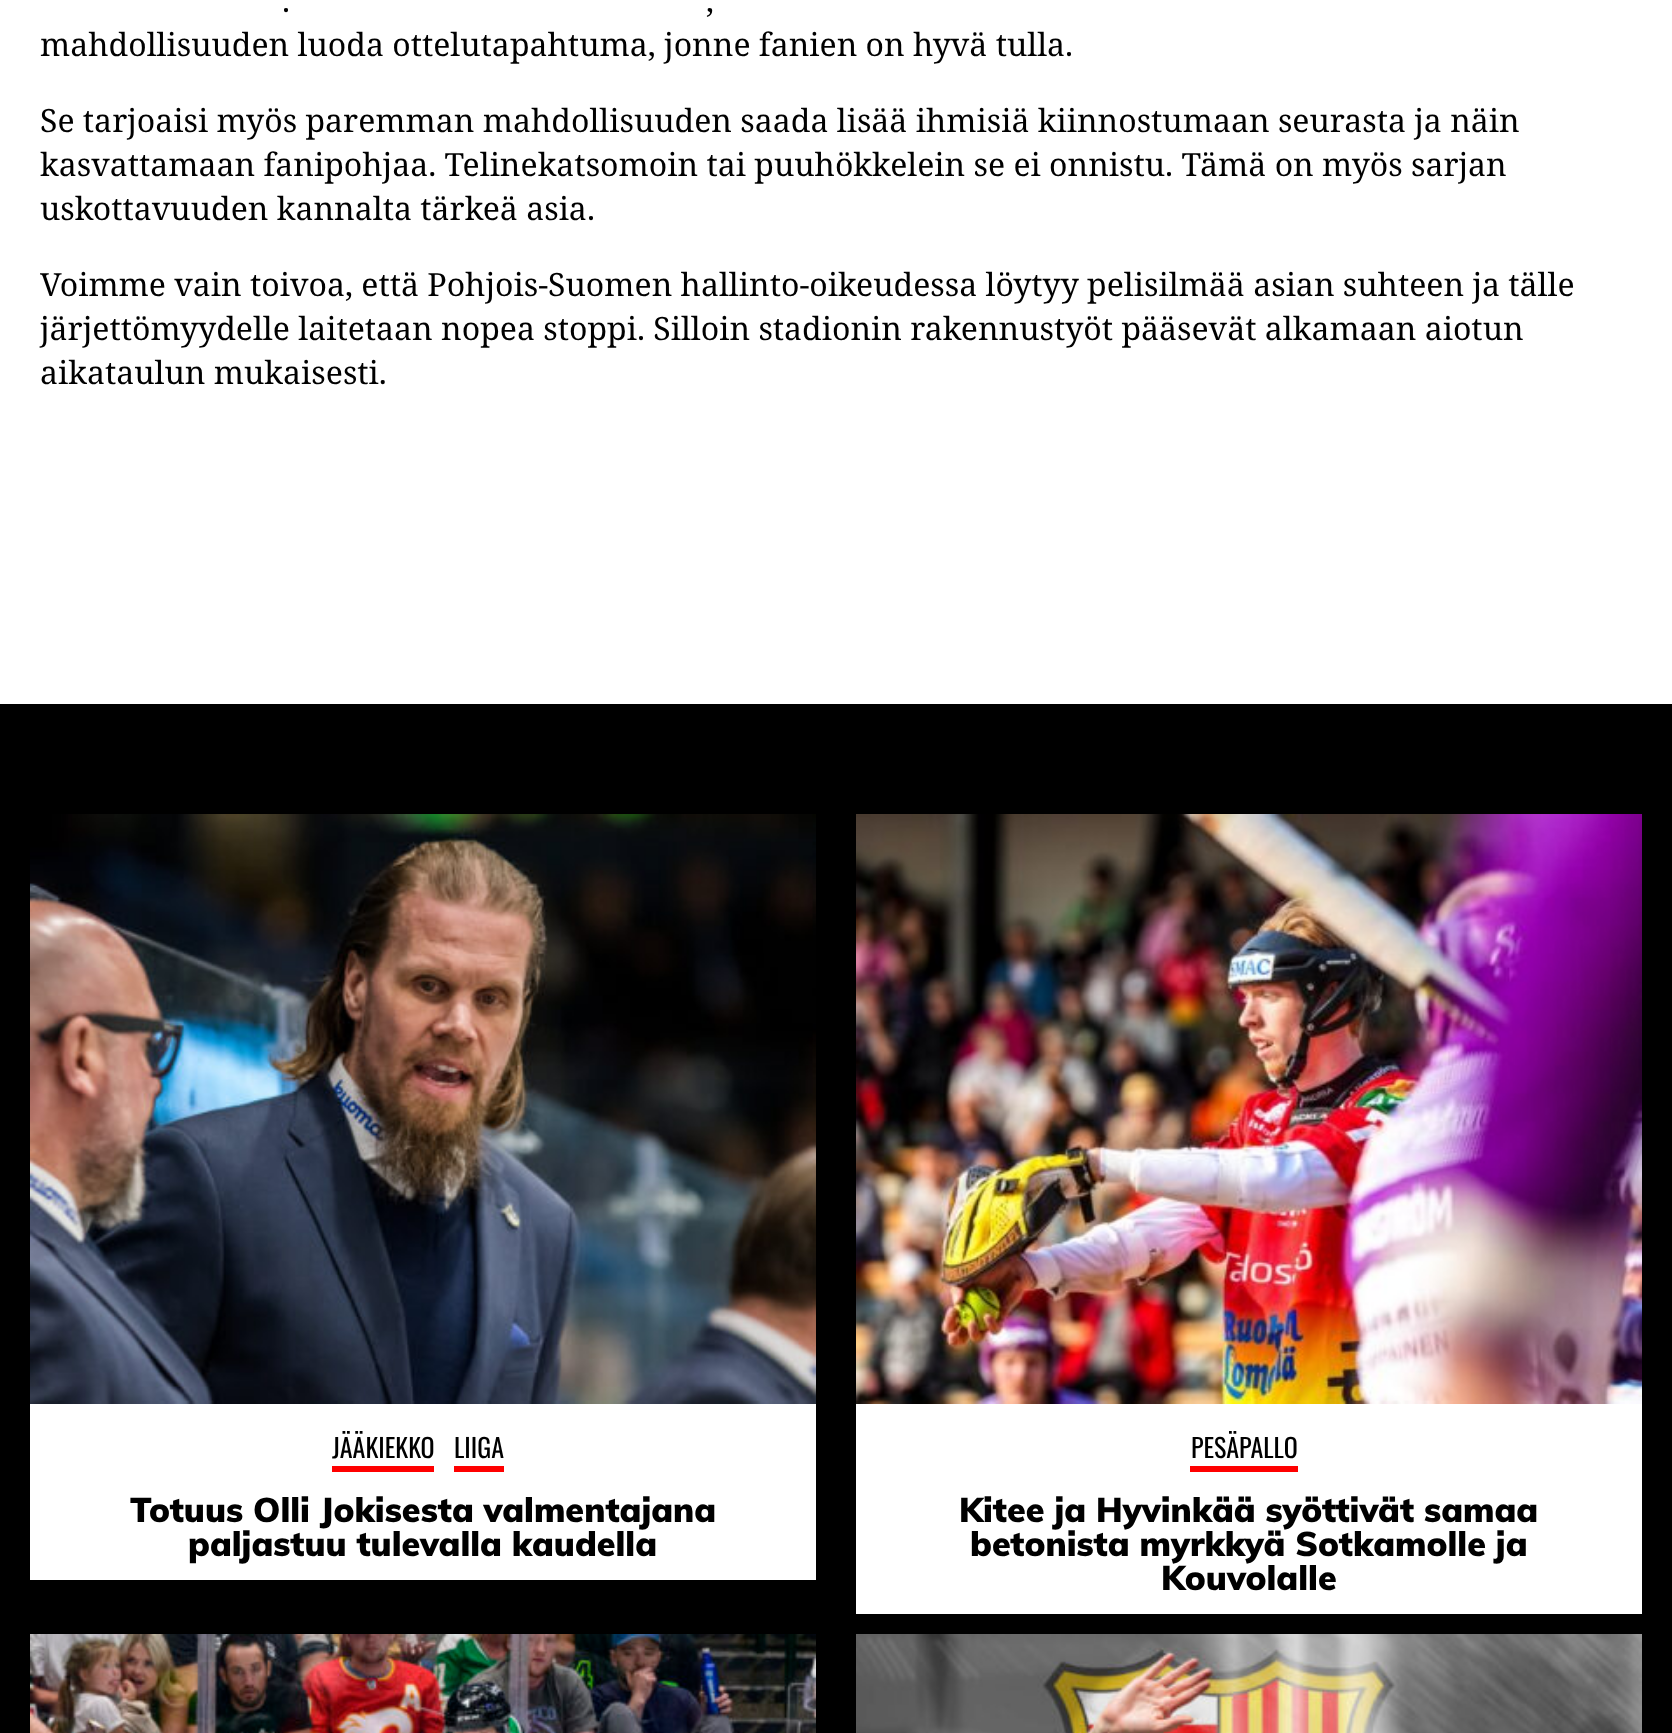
(async () => {
  const canvas = document.querySelector("canvas");
  canvas.width = 1672;
  canvas.height = 1733;
  const ctx = canvas.getContext("2d");
  ctx.miterLimit = 4;
  ctx.fontKerning = "normal";
  async function loadImage(src) {
    const img = new Image();
    img.src = src;
    await img.decode();
    return img;
  }

  ctx.fillStyle = "#000000";
  ctx.fillRect(0, 0, 1672, 1733);
  ctx.fillStyle = "#ffffff";
  ctx.fillRect(0, 0, 1672, 704);
  ctx.fillRect(30, 1404, 786, 176);
  ctx.drawImage(await loadImage("img/1.png"), 30, 814, 786, 590);
  for (const [x, y, w, h, color] of [
    [332, 1466, 102, 6, "#ff0000"],
    [454, 1466, 50, 6, "#ff0000"],
    [856, 1404, 786, 210, "#ffffff"],
  ]) {
    ctx.fillStyle = color;
    ctx.fillRect(x, y, w, h);
  }
  ctx.drawImage(await loadImage("img/2.png"), 856, 814, 786, 590);
  ctx.fillStyle = "#ff0000";
  ctx.fillRect(1190, 1466, 108, 6);
  ctx.drawImage(await loadImage("img/3.png"), 30, 1634, 786, 99);
  ctx.drawImage(await loadImage("img/4.png"), 856, 1634, 786, 99);
  ctx.font = "32px Noto Serif";
  ctx.fillStyle = "#000000";
  for (const [text, x, y] of [
    [".", 282, 12],
    [",", 706, 12],
    ["mahdollisuuden luoda ottelutapahtuma, jonne fanien on hyvä tulla.", 40, 56],
    ["Se tarjoaisi myös paremman mahdollisuuden saada lisää ihmisiä kiinnostumaan seurasta ja näin", 40, 132],
    ["kasvattamaan fanipohjaa. Telinekatsomoin tai puuhökkelein se ei onnistu. Tämä on myös sarjan", 40, 176],
    ["uskottavuuden kannalta tärkeä asia.", 40, 220],
    ["Voimme vain toivoa, että Pohjois-Suomen hallinto-oikeudessa löytyy pelisilmää asian suhteen ja tälle", 40, 296],
    ["järjettömyydelle laitetaan nopea stoppi. Silloin stadionin rakennustyöt pääsevät alkamaan aiotun", 40, 340],
    ["aikataulun mukaisesti.", 40, 384],
  ]) {
    ctx.fillText(text, x, y);
  }
  ctx.font = "26px Oswald";
  ctx.fillText("JÄÄKIEKKO", 332, 1458);
  ctx.fillText("LIIGA", 454, 1458);
  ctx.font = "900 34px Muli";
  ctx.fillText("Totuus Olli Jokisesta valmentajana", 130, 1522);
  ctx.fillText("paljastuu tulevalla kaudella", 188, 1556);
  ctx.font = "26px Oswald";
  ctx.fillText("PESÄPALLO", 1191, 1458);
  ctx.font = "900 34px Muli";
  for (const [text, x, y] of [
    ["Kitee ja Hyvinkää syöttivät samaa", 959, 1522],
    ["betonista myrkkyä Sotkamolle ja", 970, 1556],
    ["Kouvolalle", 1161, 1590],
  ]) {
    ctx.fillText(text, x, y);
  }
})();
